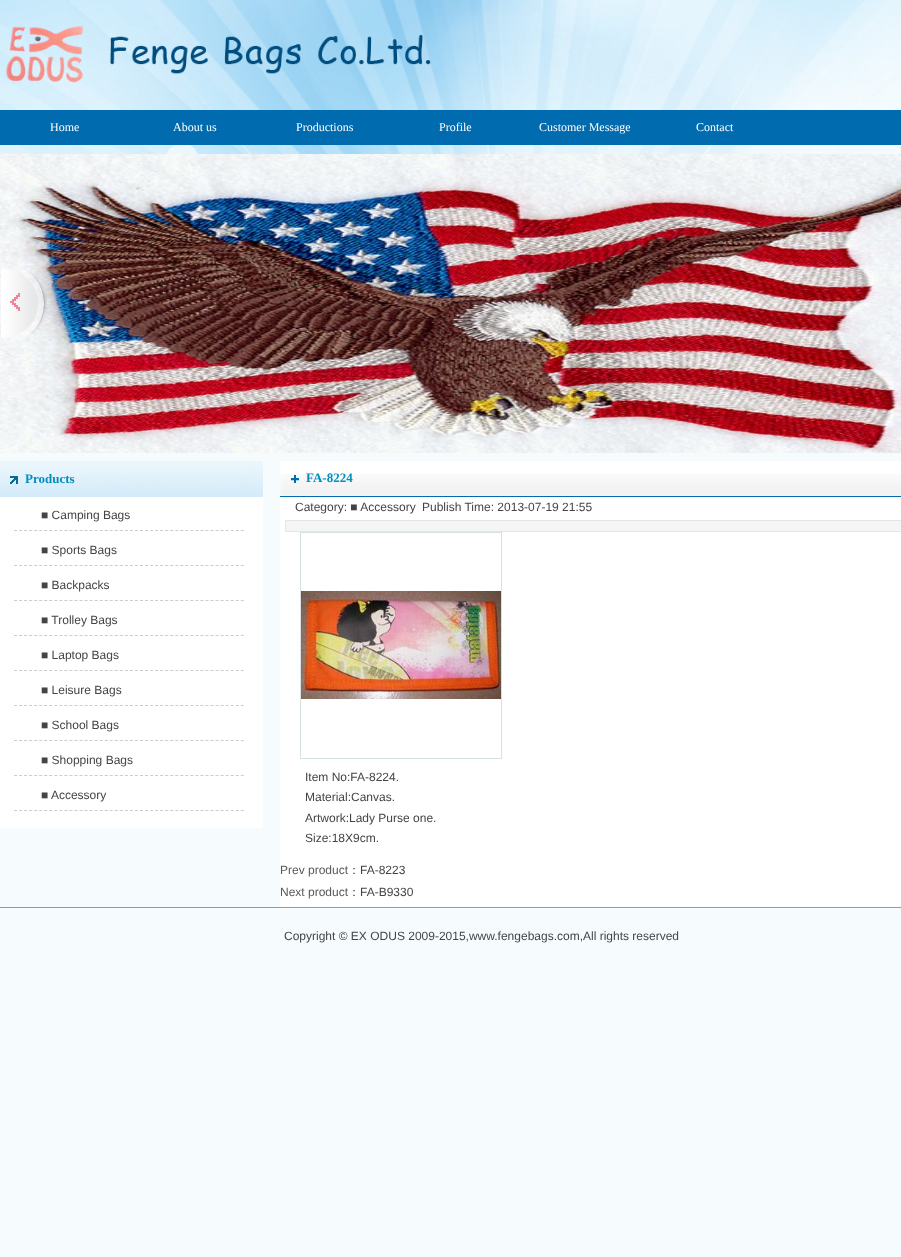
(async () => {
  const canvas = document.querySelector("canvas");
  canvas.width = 901;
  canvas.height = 1257;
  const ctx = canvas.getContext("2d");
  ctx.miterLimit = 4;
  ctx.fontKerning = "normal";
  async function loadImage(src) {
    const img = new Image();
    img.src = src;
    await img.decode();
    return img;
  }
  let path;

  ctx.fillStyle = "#f6fcfe";
  ctx.fillRect(0, 0, 901, 1257);
  ctx.drawImage(await loadImage("img/1.png"), 0, 0, 901, 154);
  ctx.drawImage(await loadImage("img/2.png"), 6, 26, 425, 57);
  ctx.fillStyle = "#006baf";
  ctx.fillRect(0, 110, 901, 35);
  ctx.drawImage(await loadImage("img/3.png"), 0, 154, 901, 299);
  ctx.drawImage(await loadImage("img/4.png"), 1, 263, 46, 81);
  ctx.fillStyle = "#ffffff";
  ctx.fillRect(0, 497, 263, 331);
  ctx.drawImage(await loadImage("img/5.png"), 0, 461, 263, 36);
  path = new Path2D("M14 530.5H244");
  ctx.strokeStyle = "#cccccc";
  ctx.setLineDash([3, 2.04]);
  ctx.stroke(path);
  path = new Path2D("M14 565.5H244");
  ctx.stroke(path);
  path = new Path2D("M14 600.5H244");
  ctx.stroke(path);
  path = new Path2D("M14 635.5H244");
  ctx.stroke(path);
  path = new Path2D("M14 670.5H244");
  ctx.stroke(path);
  path = new Path2D("M14 705.5H244");
  ctx.stroke(path);
  path = new Path2D("M14 740.5H244");
  ctx.stroke(path);
  path = new Path2D("M14 775.5H244");
  ctx.stroke(path);
  path = new Path2D("M14 810.5H244");
  ctx.stroke(path);
  ctx.fillRect(280, 461, 621, 446);
  ctx.drawImage(await loadImage("img/6.png"), 280, 474, 621, 23);
  ctx.fillStyle = "#f5f5f5";
  ctx.beginPath();
  ctx.rect(285.5, 520.5, 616, 11);
  ctx.fill();
  ctx.strokeStyle = "#e5e5e5";
  ctx.setLineDash([]);
  ctx.stroke();
  ctx.strokeStyle = "#d5e1e2";
  ctx.strokeRect(300.5, 532.5, 201, 226);
  ctx.drawImage(await loadImage("img/7.png"), 301, 591, 200, 108);
  ctx.fillStyle = "#46b5da";
  ctx.fillRect(0, 907, 901, 1);
  ctx.font = "12px Liberation Serif";
  ctx.fillStyle = "#ffffff";
  for (const [text, x, y] of [
    ["Home", 50, 131],
    ["About us", 173, 131],
    ["Productions", 296, 131],
    ["Profile", 439, 131],
    ["Customer Message", 539, 131],
    ["Contact", 696, 131],
  ]) {
    ctx.fillText(text, x, y);
  }
  ctx.font = "bold 13px Liberation Serif";
  ctx.fillStyle = "#048ebc";
  ctx.fillText("Products", 25, 483);
  ctx.font = "12px Liberation Sans";
  ctx.fillStyle = "#444444";
  for (const [text, x, y] of [
    ["■ Camping Bags", 41, 519],
    ["■ Sports Bags", 41, 554],
    ["■ Backpacks", 41, 589],
    ["■ Trolley Bags", 41, 624],
    ["■ Laptop Bags", 41, 659],
    ["■ Leisure Bags", 41, 694],
    ["■ School Bags", 41, 729],
    ["■ Shopping Bags", 41, 764],
    ["■ Accessory", 41, 799],
  ]) {
    ctx.fillText(text, x, y);
  }
  ctx.font = "bold 13px Liberation Serif";
  ctx.fillStyle = "#048ebc";
  ctx.fillText("FA-8224", 306, 482);
  ctx.font = "12px Liberation Sans";
  ctx.fillStyle = "#444444";
  for (const [text, x, y] of [
    ["Category: ■ Accessory", 295, 511],
    ["Publish Time: 2013-07-19 21:55", 422, 511],
    ["Item No:FA-8224.", 305, 781],
    ["Material:Canvas.", 305, 801],
    ["Artwork:Lady Purse one.", 305, 822],
    ["Size:18X9cm.", 305, 842],
  ]) {
    ctx.fillText(text, x, y);
  }
  ctx.fillStyle = "#595959";
  ctx.fillText("Prev product", 280, 874);
  ctx.font = "500 12px WenQuanYi Zen Hei";
  ctx.fillStyle = "#444444";
  ctx.fillText("：", 348, 874);
  ctx.font = "12px Liberation Sans";
  ctx.fillText("FA-8223", 360, 874);
  ctx.fillStyle = "#595959";
  ctx.fillText("Next product", 280, 896);
  ctx.font = "500 12px WenQuanYi Zen Hei";
  ctx.fillStyle = "#444444";
  ctx.fillText("：", 348, 896);
  ctx.font = "12px Liberation Sans";
  ctx.fillText("FA-B9330", 360, 896);
  ctx.fillText("Copyright © EX ODUS 2009-2015,www.fengebags.com,All rights reserved", 284, 940);
})();
